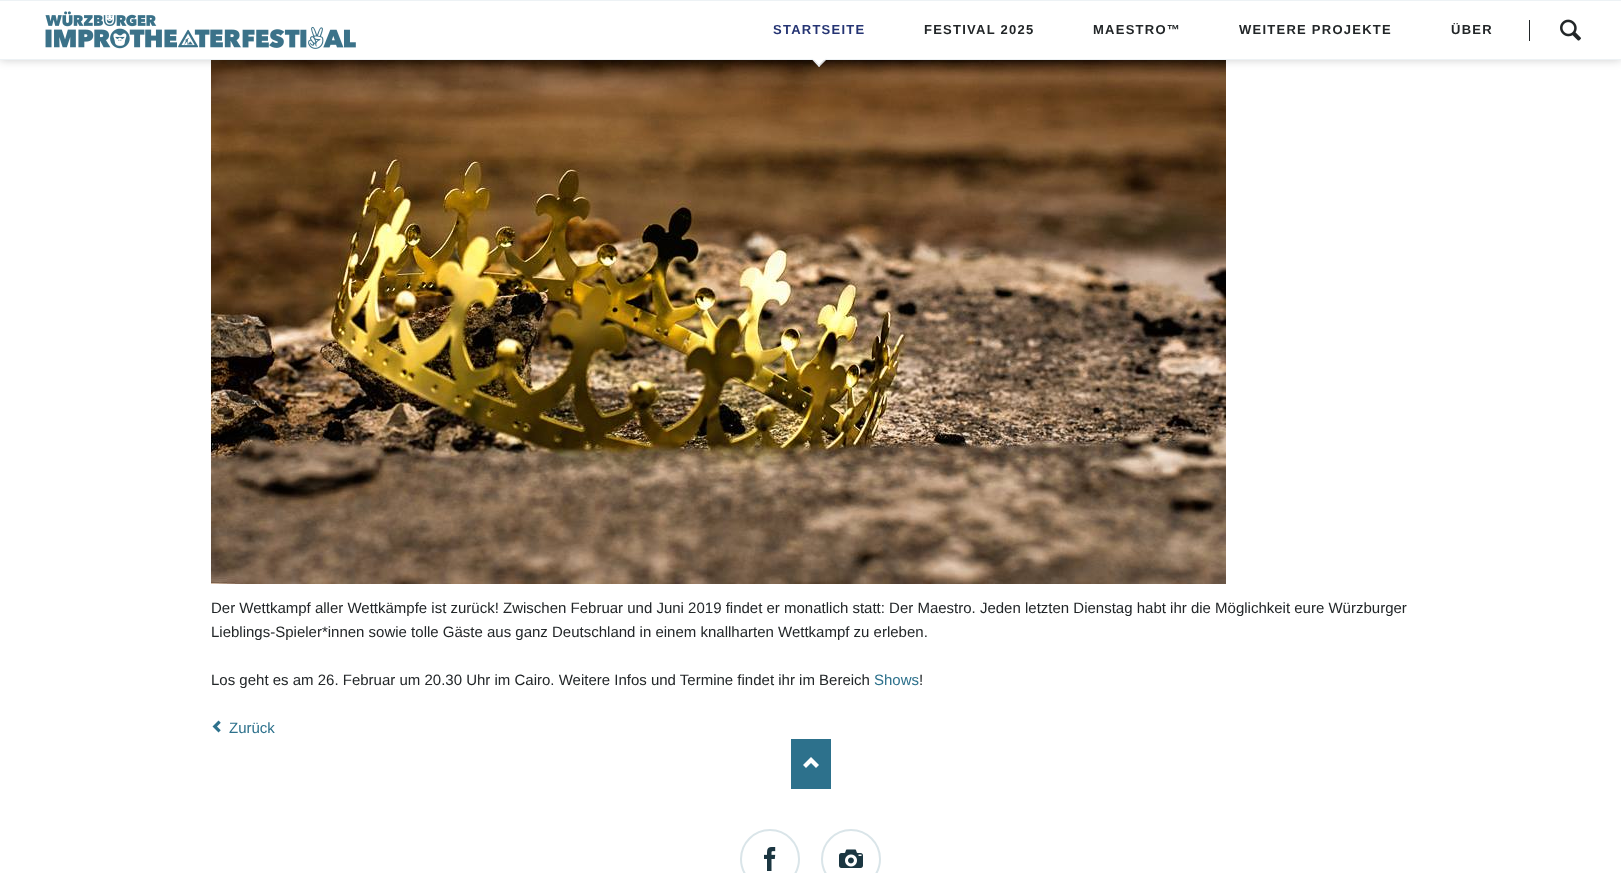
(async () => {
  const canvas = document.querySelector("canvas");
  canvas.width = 1621;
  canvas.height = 873;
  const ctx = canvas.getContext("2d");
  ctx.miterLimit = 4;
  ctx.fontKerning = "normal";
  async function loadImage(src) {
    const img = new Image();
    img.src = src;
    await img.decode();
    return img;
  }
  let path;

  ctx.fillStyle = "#ffffff";
  ctx.fillRect(0, 0, 1621, 873);
  ctx.drawImage(await loadImage("img/3.png"), 211, 60, 1015, 524);
  ctx.fillStyle = "rgba(0, 0, 0, 0.2)";
  ctx.filter = "blur(5px)";
  ctx.beginPath();
  ctx.rect(0, 0, 1621, 60);
  ctx.fill();
  ctx.filter = "none";
  for (const [x, y, w, h, color] of [
    [0, 1, 1621, 58, "#ffffff"],
    [0, 0, 1621, 1, "#edf2f5"],
    [0, 59, 1621, 1, "#edf2f5"],
  ]) {
    ctx.fillStyle = color;
    ctx.fillRect(x, y, w, h);
  }
  ctx.drawImage(await loadImage("img/1.png"), 45, 11, 311, 38);
  ctx.fillStyle = "#ffffff";
  path = new Path2D("M819 51L826 58.5L819 65.5L812 58.5Z");
  ctx.fill(path);
  ctx.fillStyle = "#edf2f5";
  path = new Path2D("M826 58.5L827 59L819 67L818.5 66Z");
  ctx.fill(path);
  path = new Path2D("M812 58.5L820 66L819 67L811.5 59Z");
  ctx.fill(path);
  ctx.fillStyle = "#222628";
  ctx.fillRect(1529, 20, 1, 21);
  ctx.drawImage(await loadImage("img/2.png"), 1560, 19, 21, 22);
  ctx.drawImage(await loadImage("img/4.png"), 212, 720, 9, 13);
  ctx.fillStyle = "#2d718c";
  ctx.fillRect(791, 739, 40, 50);
  ctx.drawImage(await loadImage("img/5.png"), 803, 757, 16, 11);
  ctx.beginPath();
  ctx.arc(770, 859, 29, 0, Math.PI * 2);
  ctx.strokeStyle = "#dae5e9";
  ctx.lineWidth = 2;
  ctx.stroke();
  ctx.drawImage(await loadImage("img/6.png"), 764, 847, 12, 24);
  ctx.beginPath();
  ctx.arc(851, 859, 29, 0, Math.PI * 2);
  ctx.stroke();
  ctx.drawImage(await loadImage("img/7.png"), 839, 849, 24, 19);
  ctx.letterSpacing = "1.25px";
  ctx.font = "bold 13px Arimo";
  ctx.fillStyle = "#253473";
  ctx.fillText("STARTSEITE", 773, 34);
  ctx.fillStyle = "#222628";
  for (const [text, x, y] of [
    ["FESTIVAL 2025", 924, 34],
    ["MAESTRO™", 1093, 34],
    ["WEITERE PROJEKTE", 1239, 34],
    ["ÜBER", 1451, 34],
  ]) {
    ctx.fillText(text, x, y);
  }
  ctx.letterSpacing = "0px";
  ctx.font = "15px Arimo";
  for (const [text, x, y] of [
    ["Der Wettkampf aller Wettkämpfe ist zurück! Zwischen Februar und Juni 2019 findet er monatlich statt: Der Maestro. Jeden letzten Dienstag habt ihr die Möglichkeit eure Würzburger", 211, 613],
    ["Lieblings-Spieler*innen sowie tolle Gäste aus ganz Deutschland in einem knallharten Wettkampf zu erleben.", 211, 637],
    ["Los geht es am 26. Februar um 20.30 Uhr im Cairo. Weitere Infos und Termine findet ihr im Bereich", 211, 685],
  ]) {
    ctx.fillText(text, x, y);
  }
  ctx.fillStyle = "#2d718c";
  ctx.fillText("Shows", 874, 685);
  ctx.fillStyle = "#222628";
  ctx.fillText("!", 919, 685);
  ctx.fillStyle = "#2d718c";
  ctx.fillText("Zurück", 229, 733);
})();
